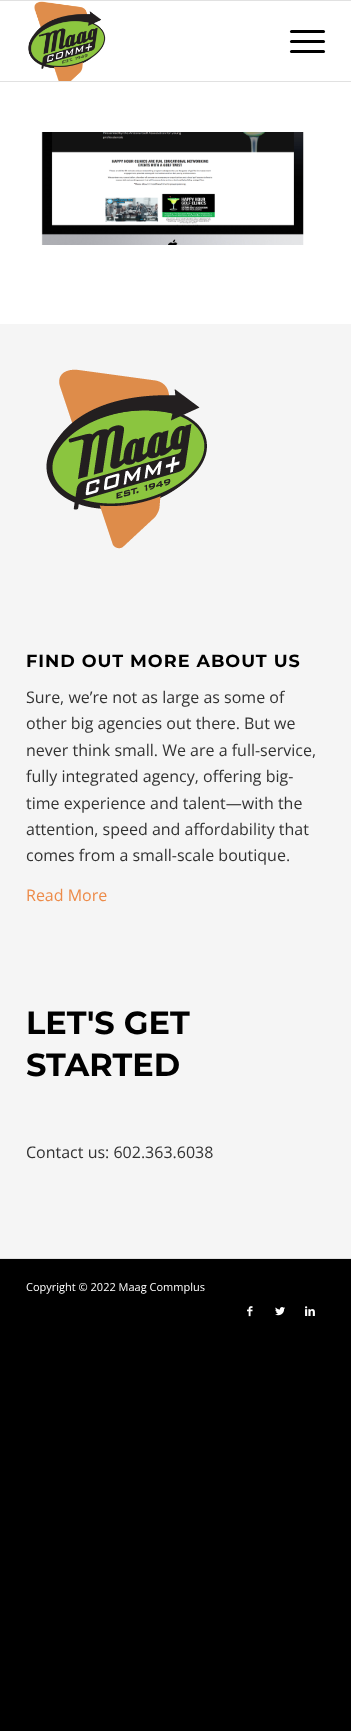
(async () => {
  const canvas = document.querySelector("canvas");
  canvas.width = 351;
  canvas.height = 1731;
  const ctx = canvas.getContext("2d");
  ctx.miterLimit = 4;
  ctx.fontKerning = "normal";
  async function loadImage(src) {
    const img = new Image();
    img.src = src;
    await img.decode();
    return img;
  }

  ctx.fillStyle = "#000000";
  ctx.fillRect(0, 0, 351, 1731);
  for (const [x, y, w, h, color] of [
    [0, 0, 351, 1, "#e1e1e1"],
    [0, 81, 351, 1, "#e1e1e1"],
    [0, 1, 351, 80, "#ffffff"],
  ]) {
    ctx.fillStyle = color;
    ctx.fillRect(x, y, w, h);
  }
  ctx.drawImage(await loadImage("img/1.png"), 28, 1, 78, 80);
  ctx.fillStyle = "#000000";
  ctx.beginPath();
  ctx.roundRect(290, 40, 35, 3, 1.5);
  ctx.fill();
  ctx.beginPath();
  ctx.roundRect(290, 30, 35, 3, 1.5);
  ctx.fill();
  ctx.beginPath();
  ctx.roundRect(290, 50, 35, 3, 1.5);
  ctx.fill();
  ctx.fillStyle = "#ffffff";
  ctx.fillRect(0, 82, 351, 242);
  ctx.drawImage(await loadImage("img/2.png"), 41, 132, 263, 113);
  ctx.fillStyle = "#f5f5f5";
  ctx.fillRect(0, 324, 351, 934);
  ctx.drawImage(await loadImage("img/3.png"), 46, 369, 161, 180);
  ctx.fillStyle = "#e1e1e1";
  ctx.fillRect(0, 1258, 351, 1);
  ctx.drawImage(await loadImage("img/4.png"), 247, 1306, 6, 11);
  ctx.drawImage(await loadImage("img/5.png"), 275, 1307, 10, 9);
  ctx.drawImage(await loadImage("img/6.png"), 305, 1306, 10, 10);
  ctx.letterSpacing = "1px";
  ctx.font = "bold 17.6px Montserrat";
  ctx.fillStyle = "#000000";
  ctx.fillText("FIND OUT MORE ABOUT US", 26, 667);
  ctx.letterSpacing = "0px";
  ctx.font = "16px Open Sans";
  ctx.fillStyle = "#333333";
  for (const [text, x, y] of [
    ["Sure, we’re not as large as some of", 26, 703],
    ["other big agencies out there. But we", 26, 729],
    ["never think small. We are a full-service,", 26, 756],
    ["fully integrated agency, offering big-", 26, 782],
    ["time experience and talent—with the", 26, 809],
    ["attention, speed and affordability that", 26, 835],
    ["comes from a small-scale boutique.", 26, 861],
  ]) {
    ctx.fillText(text, x, y);
  }
  ctx.fillStyle = "#ed8b49";
  ctx.fillText("Read More", 26, 901);
  ctx.font = "bold 32px Montserrat";
  ctx.fillStyle = "#000000";
  ctx.fillText("LET'S GET", 26, 1034);
  ctx.fillText("STARTED", 26, 1076);
  ctx.font = "16px Open Sans";
  ctx.fillStyle = "#333333";
  ctx.fillText("Contact us: 602.363.6038", 26, 1158);
  ctx.font = "11px Open Sans";
  ctx.fillStyle = "#ffffff";
  ctx.fillText("Copyright © 2022 Maag Commplus", 26, 1291);
})();
